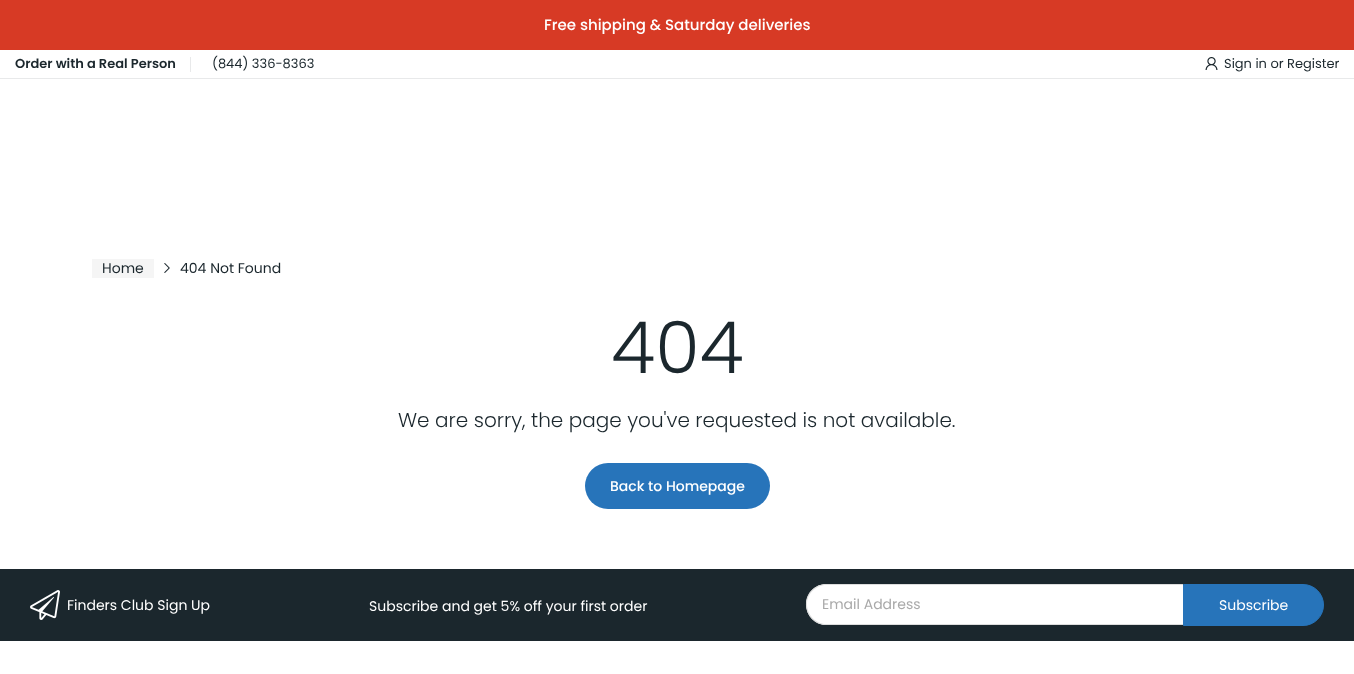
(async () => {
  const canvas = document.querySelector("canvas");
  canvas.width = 1354;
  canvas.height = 674;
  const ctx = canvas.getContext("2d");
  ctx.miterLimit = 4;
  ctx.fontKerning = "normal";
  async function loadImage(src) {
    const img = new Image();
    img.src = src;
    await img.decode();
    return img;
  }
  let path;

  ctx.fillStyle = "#ffffff";
  ctx.fillRect(0, 0, 1354, 674);
  for (const [x, y, w, h, color] of [
    [0, 0, 1354, 50, "#d73a25"],
    [0, 78, 1354, 1, "#e8e9ea"],
    [190, 57, 1, 15, "#e8e9ea"],
  ]) {
    ctx.fillStyle = color;
    ctx.fillRect(x, y, w, h);
  }
  ctx.drawImage(await loadImage("img/1.png"), 1205, 57, 13, 13);
  ctx.fillStyle = "#f5f5f5";
  ctx.fillRect(92, 259, 62, 19);
  ctx.drawImage(await loadImage("img/2.png"), 164, 263, 6, 10);
  ctx.fillStyle = "#2774ba";
  ctx.beginPath();
  ctx.roundRect(585, 463, 185, 46, 23);
  ctx.fill();
  ctx.fillStyle = "#1b272d";
  ctx.fillRect(0, 569, 1354, 72);
  ctx.drawImage(await loadImage("img/3.png"), 30, 590, 30, 30);
  ctx.fillStyle = "#ffffff";
  ctx.beginPath();
  ctx.roundRect(806, 584, 377, 41, [20.5, 0, 0, 20.5]);
  ctx.fill();
  ctx.fillStyle = "#dddddd";
  path = new Path2D("M826 584H1183V625H826C815 625 806 616 806 604C806 593 815 584 826 584ZM826 585H1183V624H826C816 624 807 615 807 604C807 594 816 585 826 585Z");
  ctx.fill(path, "evenodd");
  ctx.fillStyle = "#2774ba";
  ctx.beginPath();
  ctx.roundRect(1183.5, 584.5, 140, 41, [0, 20.5, 20.5, 0]);
  ctx.fill();
  ctx.strokeStyle = "#2774ba";
  ctx.stroke();
  ctx.font = "500 15px Poppins";
  ctx.fillStyle = "#ffffff";
  ctx.fillText("Free shipping & Saturday deliveries", 544, 30);
  ctx.font = "600 13px Poppins";
  ctx.fillStyle = "#1b272d";
  ctx.fillText("Order with a Real Person", 15, 68);
  ctx.font = "13px Poppins";
  ctx.fillText("(844) 336-8363", 212, 68);
  ctx.fillText("Sign in or Register", 1224, 68);
  ctx.font = "14px Poppins";
  ctx.fillText("Home", 102, 273);
  ctx.fillText("404 Not Found", 180, 273);
  ctx.font = "300 72px Poppins";
  ctx.fillText("404", 611, 373);
  ctx.font = "300 20px Poppins";
  ctx.fillText("We are sorry, the page you've requested is not available.", 398, 427);
  ctx.font = "500 14px Poppins";
  ctx.fillStyle = "#ffffff";
  ctx.fillText("Back to Homepage", 610, 491);
  ctx.font = "14px Poppins";
  ctx.fillText("Finders Club Sign Up", 67, 610);
  ctx.fillText("Subscribe and get 5% off your first order", 369, 611);
  ctx.fillStyle = "#a9a9a9";
  ctx.fillText("Email Address", 822, 609);
  ctx.fillStyle = "#ffffff";
  ctx.fillText("Subscribe", 1219, 610);
})();
